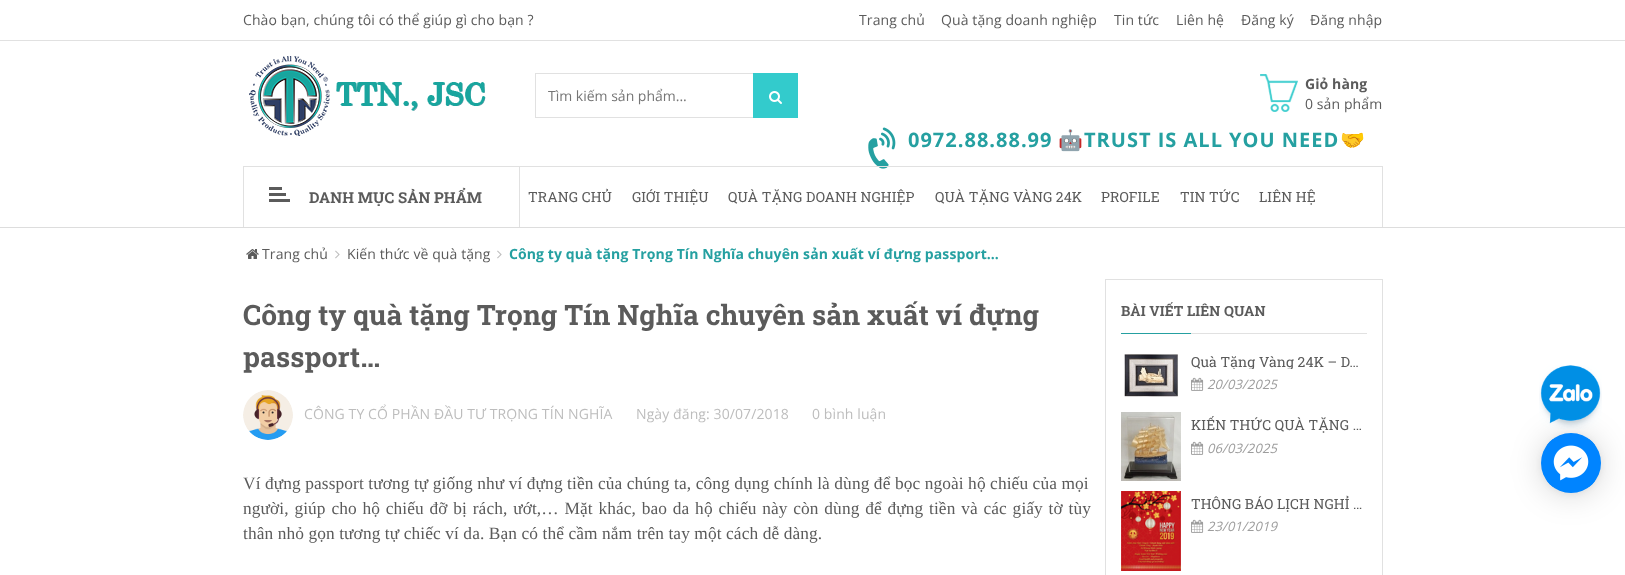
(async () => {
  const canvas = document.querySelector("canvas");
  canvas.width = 1625;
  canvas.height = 575;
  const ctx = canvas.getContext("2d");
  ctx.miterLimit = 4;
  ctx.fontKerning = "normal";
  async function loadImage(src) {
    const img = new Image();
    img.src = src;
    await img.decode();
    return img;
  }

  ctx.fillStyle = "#ffffff";
  ctx.fillRect(0, 0, 1625, 575);
  ctx.fillStyle = "#dddddd";
  ctx.fillRect(0, 227, 1625, 1);
  ctx.fillStyle = "#e1e1e1";
  ctx.fillRect(0, 40, 1625, 1);
  ctx.drawImage(await loadImage("img/1.png"), 249, 56, 237, 80);
  ctx.strokeStyle = "#e1e1e1";
  ctx.strokeRect(535.5, 73.5, 262, 44);
  ctx.fillStyle = "#33cbcc";
  ctx.fillRect(753, 73, 45, 45);
  ctx.drawImage(await loadImage("img/2.png"), 769, 91, 13, 13);
  ctx.drawImage(await loadImage("img/3.png"), 1260, 74, 38, 38);
  ctx.drawImage(await loadImage("img/4.png"), 868, 127, 28, 42);
  for (const [x, y, w, h, color] of [
    [243, 166, 1140, 1, "#e1e1e1"],
    [519, 166, 1, 61, "#e1e1e1"],
    [243, 166, 1, 61, "#e1e1e1"],
  ]) {
    ctx.fillStyle = color;
    ctx.fillRect(x, y, w, h);
  }
  ctx.drawImage(await loadImage("img/5.png"), 269, 187, 21, 15);
  ctx.fillRect(1382, 166, 1, 61);
  ctx.drawImage(await loadImage("img/6.png"), 246, 249, 13, 10);
  ctx.drawImage(await loadImage("img/7.png"), 335, 250, 5, 9);
  ctx.drawImage(await loadImage("img/7.png"), 497, 250, 5, 9);
  ctx.drawImage(await loadImage("img/8.png"), 243, 390, 50, 50);
  ctx.strokeRect(1105.5, 279.5, 277, 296);
  ctx.fillRect(1191, 333, 176, 1);
  ctx.fillStyle = "#25a0a1";
  ctx.fillRect(1121, 333, 70, 1);
  ctx.drawImage(await loadImage("img/9.png"), 1124, 354, 55, 43);
  ctx.drawImage(await loadImage("img/10.png"), 1191, 377, 13, 14);
  ctx.drawImage(await loadImage("img/11.png"), 1121, 412, 60, 69);
  ctx.drawImage(await loadImage("img/10.png"), 1191, 441, 13, 14);
  ctx.drawImage(await loadImage("img/12.png"), 1121, 491, 60, 80);
  ctx.drawImage(await loadImage("img/10.png"), 1191, 519, 13, 14);
  ctx.fillStyle = "rgba(0, 0, 0, 0.16)";
  ctx.filter = "blur(16px)";
  ctx.beginPath();
  ctx.roundRect(1541, 435, 60, 60, 30);
  ctx.fill();
  ctx.filter = "none";
  ctx.fillStyle = "rgba(0, 0, 0, 0.06)";
  ctx.filter = "blur(3px)";
  ctx.beginPath();
  ctx.roundRect(1541, 434, 60, 60, 30);
  ctx.fill();
  ctx.filter = "none";
  ctx.drawImage(await loadImage("img/13.png"), 1539, 365, 63, 64);
  ctx.fillStyle = "#0084ff";
  ctx.beginPath();
  ctx.arc(1571, 463, 30, 0, Math.PI * 2);
  ctx.fill();
  ctx.drawImage(await loadImage("img/14.png"), 1547, 439, 48, 48);
  ctx.letterSpacing = "0.1px";
  ctx.font = "14px Open Sans";
  ctx.fillStyle = "#5b5b5b";
  for (const [text, x, y] of [
    ["Chào bạn, chúng tôi có thể giúp gì cho bạn ?", 243, 25],
    ["Trang chủ", 859, 25],
    ["Quà tặng doanh nghiệp", 941, 25],
    ["Tin tức", 1114, 25],
    ["Liên hệ", 1176, 25],
    ["Đăng ký", 1241, 25],
    ["Đăng nhập", 1310, 25],
  ]) {
    ctx.fillText(text, x, y);
  }
  ctx.letterSpacing = "0px";
  ctx.fillStyle = "#757575";
  ctx.fillText("Tìm kiếm sản phẩm...", 548, 101);
  ctx.letterSpacing = "0.1px";
  ctx.font = "bold 14px Open Sans";
  ctx.fillStyle = "#5b5b5b";
  ctx.fillText("Giỏ hàng", 1305, 89);
  ctx.font = "14px Open Sans";
  ctx.fillText("0 sản phẩm", 1305, 109);
  ctx.letterSpacing = "1px";
  ctx.font = "bold 20px Open Sans";
  ctx.fillStyle = "#25a0a1";
  ctx.fillText("0972.88.88.99", 908, 147);
  ctx.font = "bold 20px Noto Color Emoji";
  ctx.fillText("🤖", 1058, 147);
  ctx.font = "bold 20px Open Sans";
  ctx.fillText("TRUST IS ALL YOU NEED", 1084, 147);
  ctx.font = "bold 20px Noto Color Emoji";
  ctx.fillText("🤝", 1340, 147);
  ctx.letterSpacing = "0.1px";
  ctx.font = "bold 15px Roboto Slab";
  ctx.fillStyle = "#5b5b5b";
  ctx.fillText("DANH MỤC SẢN PHẨM", 309, 203);
  ctx.font = "14px Roboto Slab";
  for (const [text, x, y] of [
    ["TRANG CHỦ", 528, 202],
    ["GIỚI THIỆU", 632, 202],
    ["QUÀ TẶNG DOANH NGHIỆP", 728, 202],
    ["QUÀ TẶNG VÀNG 24K", 935, 202],
    ["PROFILE", 1101, 202],
    ["TIN TỨC", 1180, 202],
    ["LIÊN HỆ", 1259, 202],
  ]) {
    ctx.fillText(text, x, y);
  }
  ctx.font = "14px Open Sans";
  ctx.fillText("Trang chủ", 262, 259);
  ctx.fillText("Kiến thức về quà tặng", 347, 259);
  ctx.font = "bold 14px Open Sans";
  ctx.fillStyle = "#25a0a1";
  ctx.fillText("Công ty quà tặng Trọng Tín Nghĩa chuyên sản xuất ví đựng passport…", 509, 259);
  ctx.font = "bold 28px Roboto Slab";
  ctx.fillStyle = "#5b5b5b";
  ctx.fillText("Công ty quà tặng Trọng Tín Nghĩa chuyên sản xuất ví đựng", 243, 325);
  ctx.fillText("passport…", 243, 367);
  ctx.font = "14px Open Sans";
  ctx.fillStyle = "#bdbdbd";
  for (const [text, x, y] of [
    ["CÔNG TY CỔ PHẦN ĐẦU TƯ TRỌNG TÍN NGHĨA", 304, 419],
    ["Ngày đăng: 30/07/2018", 636, 419],
    ["0 bình luận", 812, 419],
  ]) {
    ctx.fillText(text, x, y);
  }
  ctx.font = "17.35px Liberation Serif";
  ctx.fillStyle = "#5b5b5b";
  ctx.fillText("Ví đựng passport tương tự giống như ví đựng tiền của chúng ta, công dụng chính là dùng để bọc ngoài hộ chiếu của mọi", 243, 489);
  ctx.wordSpacing = "1.3px";
  ctx.fillText("người, giúp cho hộ chiếu đỡ bị rách, ướt,… Mặt khác, bao da hộ chiếu này còn dùng để đựng tiền và các giấy tờ tùy", 243, 514);
  ctx.wordSpacing = "0px";
  ctx.fillText("thân nhỏ gọn tương tự chiếc ví da. Bạn có thể cầm nắm trên tay một cách dễ dàng.", 243, 539);
  ctx.font = "bold 14px Roboto Slab";
  ctx.fillText("BÀI VIẾT LIÊN QUAN", 1121, 316);
  ctx.save();
  ctx.beginPath();
  ctx.rect(1191, 349, 176, 20);
  ctx.clip();
  ctx.font = "14px Roboto Slab";
  ctx.fillText("Quà Tặng Vàng 24K – D…", 1191, 367);
  ctx.restore();
  ctx.font = "italic 13px Open Sans";
  ctx.fillStyle = "#9d9d9d";
  ctx.fillText("20/03/2025", 1207, 389);
  ctx.font = "14px Roboto Slab";
  ctx.fillStyle = "#5b5b5b";
  ctx.fillText("KIẾN THỨC QUÀ TẶNG …", 1191, 430);
  ctx.font = "italic 13px Open Sans";
  ctx.fillStyle = "#9d9d9d";
  ctx.fillText("06/03/2025", 1207, 453);
  ctx.font = "14px Roboto Slab";
  ctx.fillStyle = "#5b5b5b";
  ctx.fillText("THÔNG BÁO LỊCH NGHỈ …", 1191, 509);
  ctx.font = "italic 13px Open Sans";
  ctx.fillStyle = "#9d9d9d";
  ctx.fillText("23/01/2019", 1207, 531);
})();
